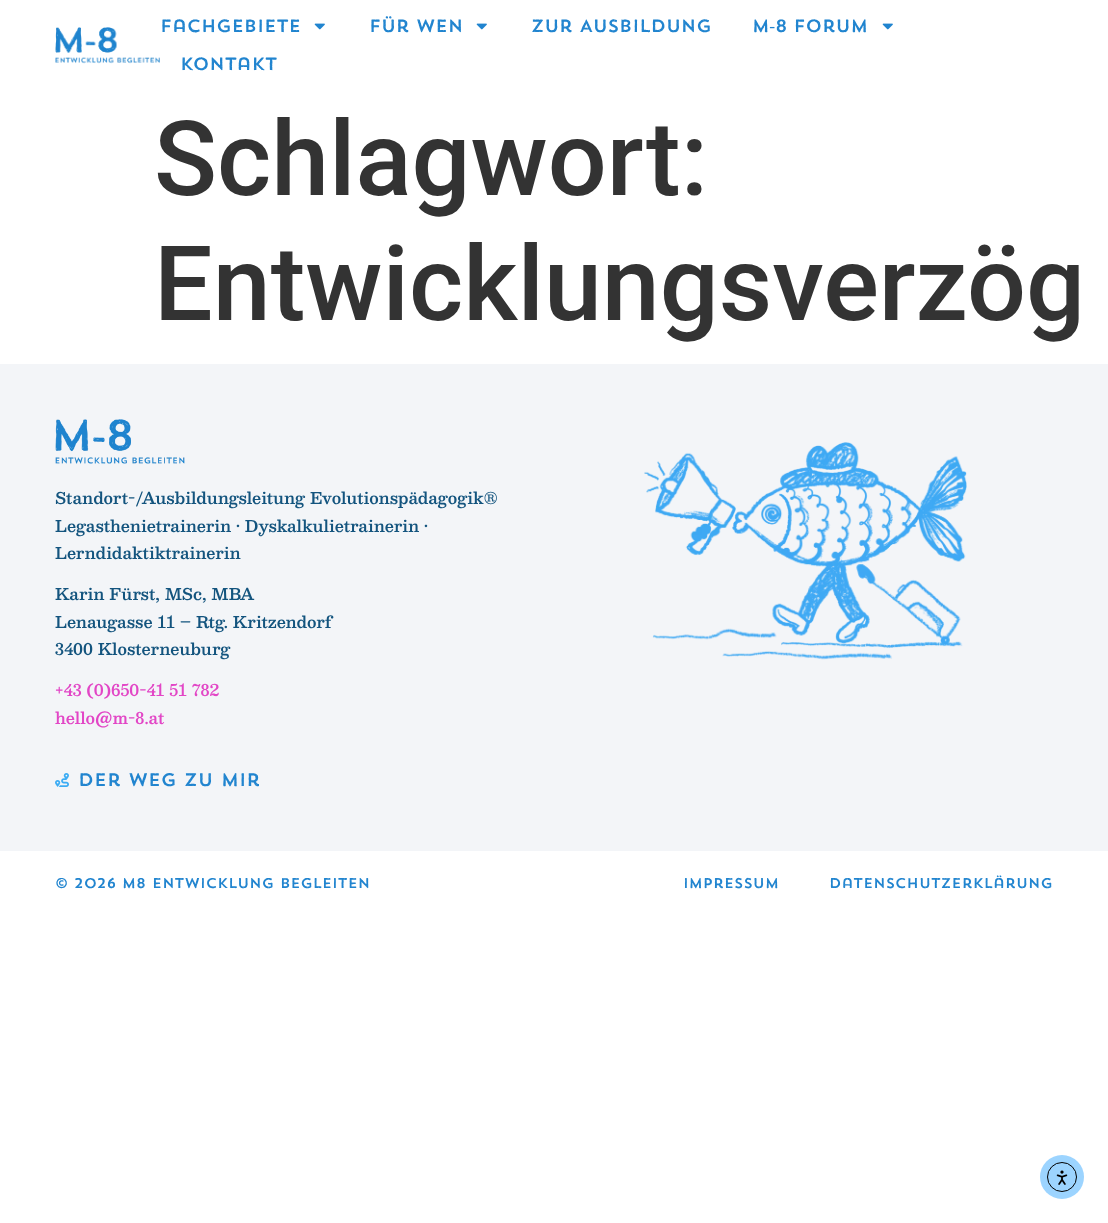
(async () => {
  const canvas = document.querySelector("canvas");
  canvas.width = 1108;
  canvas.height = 1223;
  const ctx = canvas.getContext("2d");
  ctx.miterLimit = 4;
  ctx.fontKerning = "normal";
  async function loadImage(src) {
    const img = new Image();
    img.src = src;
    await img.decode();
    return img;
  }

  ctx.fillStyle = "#ffffff";
  ctx.fillRect(0, 0, 1108, 1223);
  ctx.drawImage(await loadImage("img/1.png"), 55, 27, 105, 37);
  ctx.drawImage(await loadImage("img/2.png"), 314, 23, 11, 7);
  ctx.drawImage(await loadImage("img/2.png"), 476, 23, 11, 7);
  ctx.drawImage(await loadImage("img/2.png"), 882, 23, 11, 7);
  ctx.fillStyle = "#f3f5f8";
  ctx.fillRect(0, 364, 1108, 487);
  ctx.drawImage(await loadImage("img/3.png"), 55, 419, 130, 45);
  ctx.drawImage(await loadImage("img/4.png"), 55, 773, 14, 14);
  ctx.drawImage(await loadImage("img/5.png"), 644, 442, 323, 218);
  ctx.fillStyle = "#9cd4ff";
  ctx.beginPath();
  ctx.arc(1062, 1177, 22, 0, Math.PI * 2);
  ctx.fill();
  ctx.beginPath();
  ctx.arc(1062, 1177, 14.5, 0, Math.PI * 2);
  ctx.strokeStyle = "#000000";
  ctx.stroke();
  ctx.drawImage(await loadImage("img/6.png"), 1056, 1170, 12, 15);
  ctx.letterSpacing = "-0.25px";
  ctx.font = "200 17.6px 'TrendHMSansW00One'";
  ctx.fillStyle = "#2084cf";
  for (const [text, x, y] of [
    ["Fachgebiete", 160, 32],
    ["Für Wen", 369, 32],
    ["Zur Ausbildung", 531, 32],
  ]) {
    ctx.fillText(text, x, y);
  }
  ctx.wordSpacing = "-1px";
  ctx.fillText("M‑8 Forum", 752, 32);
  ctx.wordSpacing = "0px";
  ctx.fillText("Kontakt", 180, 70);
  ctx.letterSpacing = "0px";
  ctx.font = "500 104px Roboto";
  ctx.fillStyle = "#333333";
  ctx.fillText("Schlagwort:", 154, 195);
  ctx.fillText("Entwicklungsverzög", 154, 320);
  ctx.font = "600 16px Besley";
  ctx.fillStyle = "#13547e";
  for (const [text, x, y] of [
    ["Standort-/Ausbildungsleitung Evolutionspädagogik®", 55, 504],
    ["Legasthenietrainerin • Dyskalkulietrainerin •", 55, 532],
    ["Lerndidaktiktrainerin", 55, 559],
    ["Karin Fürst, MSc, MBA", 55, 600],
    ["Lenaugasse 11 – Rtg. Kritzendorf", 55, 628],
    ["3400 Klosterneuburg", 55, 655],
  ]) {
    ctx.fillText(text, x, y);
  }
  ctx.fillStyle = "#e246c6";
  ctx.fillText("+43 (0)650-41 51 782", 55, 696);
  ctx.fillText("hello@m-8.at", 55, 724);
  ctx.font = "200 18px 'TrendHMSansW00One'";
  ctx.fillStyle = "#2084cf";
  ctx.fillText("Der Weg zu mir", 78, 786);
  ctx.font = "200 14px 'TrendHMSansW00One'";
  for (const [text, x, y] of [
    ["© 2026 M8 Entwicklung begleiten", 55, 888],
    ["Impressum", 683, 888],
    ["Datenschutzerklärung", 829, 888],
  ]) {
    ctx.fillText(text, x, y);
  }
})();
